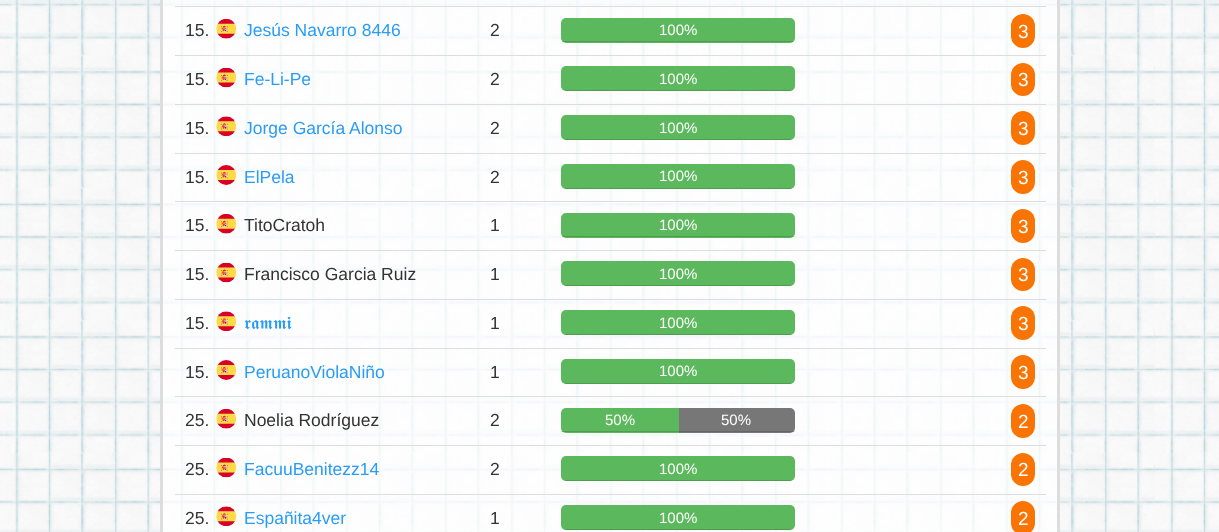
(async () => {
  const canvas = document.querySelector("canvas");
  canvas.width = 1219;
  canvas.height = 532;
  const ctx = canvas.getContext("2d");
  ctx.miterLimit = 4;
  ctx.fontKerning = "normal";
  async function loadImage(src) {
    const img = new Image();
    img.src = src;
    await img.decode();
    return img;
  }

  ctx.fillStyle = "#ffffff";
  ctx.fillRect(0, 0, 1219, 532);
  ctx.drawImage(await loadImage("img/1.png"), 0, 0, 1219, 532);
  ctx.fillStyle = "rgba(255, 255, 255, 0.75)";
  ctx.beginPath();
  ctx.rect(161.5, -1.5, 897, 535);
  ctx.fill();
  ctx.strokeStyle = "#dddddd";
  ctx.lineWidth = 3;
  ctx.stroke();
  ctx.drawImage(await loadImage("img/2.png"), 216, 19, 21, 20);
  ctx.fillStyle = "#5cb85c";
  ctx.beginPath();
  ctx.roundRect(561, 18, 234, 25, 5);
  ctx.fill();
  ctx.save();
  ctx.beginPath();
  ctx.roundRect(561, 18, 234, 25, 5);
  ctx.clip();
  ctx.fillStyle = "rgba(0, 0, 0, 0.15)";
  ctx.fillRect(561, 41, 234, 1);
  ctx.restore();
  ctx.fillStyle = "#dddddd";
  ctx.fillRect(175, 6, 871, 1);
  ctx.fillStyle = "#fa7403";
  ctx.beginPath();
  ctx.roundRect(1011, 14, 24, 34, 12);
  ctx.fill();
  ctx.drawImage(await loadImage("img/3.png"), 216, 68, 21, 20);
  ctx.fillStyle = "#5cb85c";
  ctx.beginPath();
  ctx.roundRect(561, 66, 234, 25, 5);
  ctx.fill();
  ctx.save();
  ctx.beginPath();
  ctx.roundRect(561, 66, 234, 25, 5);
  ctx.clip();
  ctx.fillStyle = "rgba(0, 0, 0, 0.15)";
  ctx.fillRect(561, 90, 234, 1);
  ctx.restore();
  ctx.fillStyle = "#dddddd";
  ctx.fillRect(175, 55, 871, 1);
  ctx.fillStyle = "#fa7403";
  ctx.beginPath();
  ctx.roundRect(1011, 63, 24, 33, 12);
  ctx.fill();
  ctx.drawImage(await loadImage("img/4.png"), 216, 116, 21, 20);
  ctx.fillStyle = "#5cb85c";
  ctx.beginPath();
  ctx.roundRect(561, 115, 234, 25, 5);
  ctx.fill();
  ctx.save();
  ctx.beginPath();
  ctx.roundRect(561, 115, 234, 25, 5);
  ctx.clip();
  ctx.fillStyle = "rgba(0, 0, 0, 0.15)";
  ctx.fillRect(561, 139, 234, 1);
  ctx.restore();
  ctx.fillStyle = "#dddddd";
  ctx.fillRect(175, 104, 871, 1);
  ctx.fillStyle = "#fa7403";
  ctx.beginPath();
  ctx.roundRect(1011, 111, 24, 34, 12);
  ctx.fill();
  ctx.drawImage(await loadImage("img/5.png"), 216, 165, 21, 20);
  ctx.fillStyle = "#5cb85c";
  ctx.beginPath();
  ctx.roundRect(561, 164, 234, 25, 5);
  ctx.fill();
  ctx.save();
  ctx.beginPath();
  ctx.roundRect(561, 164, 234, 25, 5);
  ctx.clip();
  ctx.fillStyle = "rgba(0, 0, 0, 0.15)";
  ctx.fillRect(561, 188, 234, 1);
  ctx.restore();
  ctx.fillStyle = "#dddddd";
  ctx.fillRect(175, 153, 871, 1);
  ctx.fillStyle = "#fa7403";
  ctx.beginPath();
  ctx.roundRect(1011, 160, 24, 34, 12);
  ctx.fill();
  ctx.drawImage(await loadImage("img/6.png"), 216, 214, 21, 20);
  ctx.fillStyle = "#5cb85c";
  ctx.beginPath();
  ctx.roundRect(561, 213, 234, 25, 5);
  ctx.fill();
  ctx.save();
  ctx.beginPath();
  ctx.roundRect(561, 213, 234, 25, 5);
  ctx.clip();
  ctx.fillStyle = "rgba(0, 0, 0, 0.15)";
  ctx.fillRect(561, 236, 234, 1);
  ctx.restore();
  ctx.fillStyle = "#dddddd";
  ctx.fillRect(175, 201, 871, 1);
  ctx.fillStyle = "#fa7403";
  ctx.beginPath();
  ctx.roundRect(1011, 209, 24, 34, 12);
  ctx.fill();
  ctx.drawImage(await loadImage("img/7.png"), 216, 263, 21, 20);
  ctx.fillStyle = "#5cb85c";
  ctx.beginPath();
  ctx.roundRect(561, 261, 234, 25, 5);
  ctx.fill();
  ctx.save();
  ctx.beginPath();
  ctx.roundRect(561, 261, 234, 25, 5);
  ctx.clip();
  ctx.fillStyle = "rgba(0, 0, 0, 0.15)";
  ctx.fillRect(561, 285, 234, 1);
  ctx.restore();
  ctx.fillStyle = "#dddddd";
  ctx.fillRect(175, 250, 871, 1);
  ctx.fillStyle = "#fa7403";
  ctx.beginPath();
  ctx.roundRect(1011, 258, 24, 33, 12);
  ctx.fill();
  ctx.drawImage(await loadImage("img/8.png"), 216, 311, 21, 20);
  ctx.fillStyle = "#5cb85c";
  ctx.beginPath();
  ctx.roundRect(561, 310, 234, 25, 5);
  ctx.fill();
  ctx.save();
  ctx.beginPath();
  ctx.roundRect(561, 310, 234, 25, 5);
  ctx.clip();
  ctx.fillStyle = "rgba(0, 0, 0, 0.15)";
  ctx.fillRect(561, 334, 234, 1);
  ctx.restore();
  ctx.fillStyle = "#dddddd";
  ctx.fillRect(175, 299, 871, 1);
  ctx.fillStyle = "#fa7403";
  ctx.beginPath();
  ctx.roundRect(1011, 306, 24, 34, 12);
  ctx.fill();
  ctx.drawImage(await loadImage("img/9.png"), 216, 360, 21, 20);
  ctx.fillStyle = "#5cb85c";
  ctx.beginPath();
  ctx.roundRect(561, 359, 234, 25, 5);
  ctx.fill();
  ctx.save();
  ctx.beginPath();
  ctx.roundRect(561, 359, 234, 25, 5);
  ctx.clip();
  ctx.fillStyle = "rgba(0, 0, 0, 0.15)";
  ctx.fillRect(561, 383, 234, 1);
  ctx.restore();
  ctx.fillStyle = "#dddddd";
  ctx.fillRect(175, 348, 871, 1);
  ctx.fillStyle = "#fa7403";
  ctx.beginPath();
  ctx.roundRect(1011, 355, 24, 34, 12);
  ctx.fill();
  ctx.drawImage(await loadImage("img/10.png"), 216, 409, 21, 20);
  ctx.fillStyle = "#5cb85c";
  ctx.beginPath();
  ctx.roundRect(561, 408, 118, 25, [5, 0, 0, 5]);
  ctx.fill();
  ctx.fillStyle = "rgba(0, 0, 0, 0.15)";
  ctx.fillRect(561, 431, 118, 1);
  ctx.fillStyle = "#777777";
  ctx.beginPath();
  ctx.roundRect(679, 408, 116, 25, [0, 5, 5, 0]);
  ctx.fill();
  ctx.fillStyle = "rgba(0, 0, 0, 0.15)";
  ctx.fillRect(679, 431, 116, 1);
  ctx.fillStyle = "#dddddd";
  ctx.fillRect(175, 396, 871, 1);
  ctx.fillStyle = "#fa7403";
  ctx.beginPath();
  ctx.roundRect(1011, 404, 24, 34, 12);
  ctx.fill();
  ctx.drawImage(await loadImage("img/11.png"), 216, 458, 21, 20);
  ctx.fillStyle = "#5cb85c";
  ctx.beginPath();
  ctx.roundRect(561, 456, 234, 25, 5);
  ctx.fill();
  ctx.save();
  ctx.beginPath();
  ctx.roundRect(561, 456, 234, 25, 5);
  ctx.clip();
  ctx.fillStyle = "rgba(0, 0, 0, 0.15)";
  ctx.fillRect(561, 480, 234, 1);
  ctx.restore();
  ctx.fillStyle = "#dddddd";
  ctx.fillRect(175, 445, 871, 1);
  ctx.fillStyle = "#fa7403";
  ctx.beginPath();
  ctx.roundRect(1011, 453, 24, 33, 12);
  ctx.fill();
  ctx.drawImage(await loadImage("img/12.png"), 216, 506, 21, 20);
  ctx.fillStyle = "#5cb85c";
  ctx.beginPath();
  ctx.roundRect(561, 505, 234, 25, 5);
  ctx.fill();
  ctx.save();
  ctx.beginPath();
  ctx.roundRect(561, 505, 234, 25, 5);
  ctx.clip();
  ctx.fillStyle = "rgba(0, 0, 0, 0.15)";
  ctx.fillRect(561, 529, 234, 1);
  ctx.restore();
  ctx.fillStyle = "#dddddd";
  ctx.fillRect(175, 494, 871, 1);
  ctx.fillStyle = "#fa7403";
  ctx.beginPath();
  ctx.roundRect(1011, 501, 24, 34, 12);
  ctx.fill();
  ctx.font = "17.5px Liberation Sans";
  ctx.fillStyle = "#333333";
  ctx.fillText("15.", 185, 36);
  ctx.fillStyle = "#2b9cf5";
  ctx.fillText("Jesús Navarro 8446", 244, 36);
  ctx.fillStyle = "#333333";
  ctx.fillText("2", 490, 36);
  ctx.font = "15px Liberation Sans";
  ctx.fillStyle = "#ffffff";
  ctx.fillText("100%", 659, 35);
  ctx.font = "19px Liberation Sans";
  ctx.fillText("3", 1018, 38);
  ctx.font = "17.5px Liberation Sans";
  ctx.fillStyle = "#333333";
  ctx.fillText("15.", 185, 85);
  ctx.fillStyle = "#2b9cf5";
  ctx.fillText("Fe-Li-Pe", 244, 85);
  ctx.fillStyle = "#333333";
  ctx.fillText("2", 490, 85);
  ctx.font = "15px Liberation Sans";
  ctx.fillStyle = "#ffffff";
  ctx.fillText("100%", 659, 84);
  ctx.font = "19px Liberation Sans";
  ctx.fillText("3", 1018, 86);
  ctx.font = "17.5px Liberation Sans";
  ctx.fillStyle = "#333333";
  ctx.fillText("15.", 185, 134);
  ctx.fillStyle = "#2b9cf5";
  ctx.fillText("Jorge García Alonso", 244, 134);
  ctx.fillStyle = "#333333";
  ctx.fillText("2", 490, 134);
  ctx.font = "15px Liberation Sans";
  ctx.fillStyle = "#ffffff";
  ctx.fillText("100%", 659, 133);
  ctx.font = "19px Liberation Sans";
  ctx.fillText("3", 1018, 135);
  ctx.font = "17.5px Liberation Sans";
  ctx.fillStyle = "#333333";
  ctx.fillText("15.", 185, 183);
  ctx.fillStyle = "#2b9cf5";
  ctx.fillText("ElPela", 244, 183);
  ctx.fillStyle = "#333333";
  ctx.fillText("2", 490, 183);
  ctx.font = "15px Liberation Sans";
  ctx.fillStyle = "#ffffff";
  ctx.fillText("100%", 659, 181);
  ctx.font = "19px Liberation Sans";
  ctx.fillText("3", 1018, 184);
  ctx.font = "17.5px Liberation Sans";
  ctx.fillStyle = "#333333";
  for (const [text, x, y] of [
    ["15.", 185, 231],
    ["TitoCratoh", 244, 231],
    ["1", 490, 231],
  ]) {
    ctx.fillText(text, x, y);
  }
  ctx.font = "15px Liberation Sans";
  ctx.fillStyle = "#ffffff";
  ctx.fillText("100%", 659, 230);
  ctx.font = "19px Liberation Sans";
  ctx.fillText("3", 1018, 233);
  ctx.font = "17.5px Liberation Sans";
  ctx.fillStyle = "#333333";
  for (const [text, x, y] of [
    ["15.", 185, 280],
    ["Francisco Garcia Ruiz", 244, 280],
    ["1", 490, 280],
  ]) {
    ctx.fillText(text, x, y);
  }
  ctx.font = "15px Liberation Sans";
  ctx.fillStyle = "#ffffff";
  ctx.fillText("100%", 659, 279);
  ctx.font = "19px Liberation Sans";
  ctx.fillText("3", 1018, 281);
  ctx.font = "17.5px Liberation Sans";
  ctx.fillStyle = "#333333";
  ctx.fillText("15.", 185, 329);
  ctx.font = "17.5px FreeSerif";
  ctx.fillStyle = "#2b9cf5";
  ctx.fillText("𝖗𝖆𝖒𝖒𝖎", 244, 329);
  ctx.font = "17.5px Liberation Sans";
  ctx.fillStyle = "#333333";
  ctx.fillText("1", 490, 329);
  ctx.font = "15px Liberation Sans";
  ctx.fillStyle = "#ffffff";
  ctx.fillText("100%", 659, 328);
  ctx.font = "19px Liberation Sans";
  ctx.fillText("3", 1018, 330);
  ctx.font = "17.5px Liberation Sans";
  ctx.fillStyle = "#333333";
  ctx.fillText("15.", 185, 378);
  ctx.fillStyle = "#2b9cf5";
  ctx.fillText("PeruanoViolaNiño", 244, 378);
  ctx.fillStyle = "#333333";
  ctx.fillText("1", 490, 378);
  ctx.font = "15px Liberation Sans";
  ctx.fillStyle = "#ffffff";
  ctx.fillText("100%", 659, 376);
  ctx.font = "19px Liberation Sans";
  ctx.fillText("3", 1018, 379);
  ctx.font = "17.5px Liberation Sans";
  ctx.fillStyle = "#333333";
  for (const [text, x, y] of [
    ["25.", 185, 426],
    ["Noelia Rodríguez", 244, 426],
    ["2", 490, 426],
  ]) {
    ctx.fillText(text, x, y);
  }
  ctx.font = "15px Liberation Sans";
  ctx.fillStyle = "#ffffff";
  ctx.fillText("50%", 605, 425);
  ctx.fillText("50%", 721, 425);
  ctx.font = "19px Liberation Sans";
  ctx.fillText("2", 1018, 428);
  ctx.font = "17.5px Liberation Sans";
  ctx.fillStyle = "#333333";
  ctx.fillText("25.", 185, 475);
  ctx.fillStyle = "#2b9cf5";
  ctx.fillText("FacuuBenitezz14", 244, 475);
  ctx.fillStyle = "#333333";
  ctx.fillText("2", 490, 475);
  ctx.font = "15px Liberation Sans";
  ctx.fillStyle = "#ffffff";
  ctx.fillText("100%", 659, 474);
  ctx.font = "19px Liberation Sans";
  ctx.fillText("2", 1018, 476);
  ctx.font = "17.5px Liberation Sans";
  ctx.fillStyle = "#333333";
  ctx.fillText("25.", 185, 524);
  ctx.fillStyle = "#2b9cf5";
  ctx.fillText("Españita4ver", 244, 524);
  ctx.fillStyle = "#333333";
  ctx.fillText("1", 490, 524);
  ctx.font = "15px Liberation Sans";
  ctx.fillStyle = "#ffffff";
  ctx.fillText("100%", 659, 523);
  ctx.font = "19px Liberation Sans";
  ctx.fillText("2", 1018, 525);
})();
